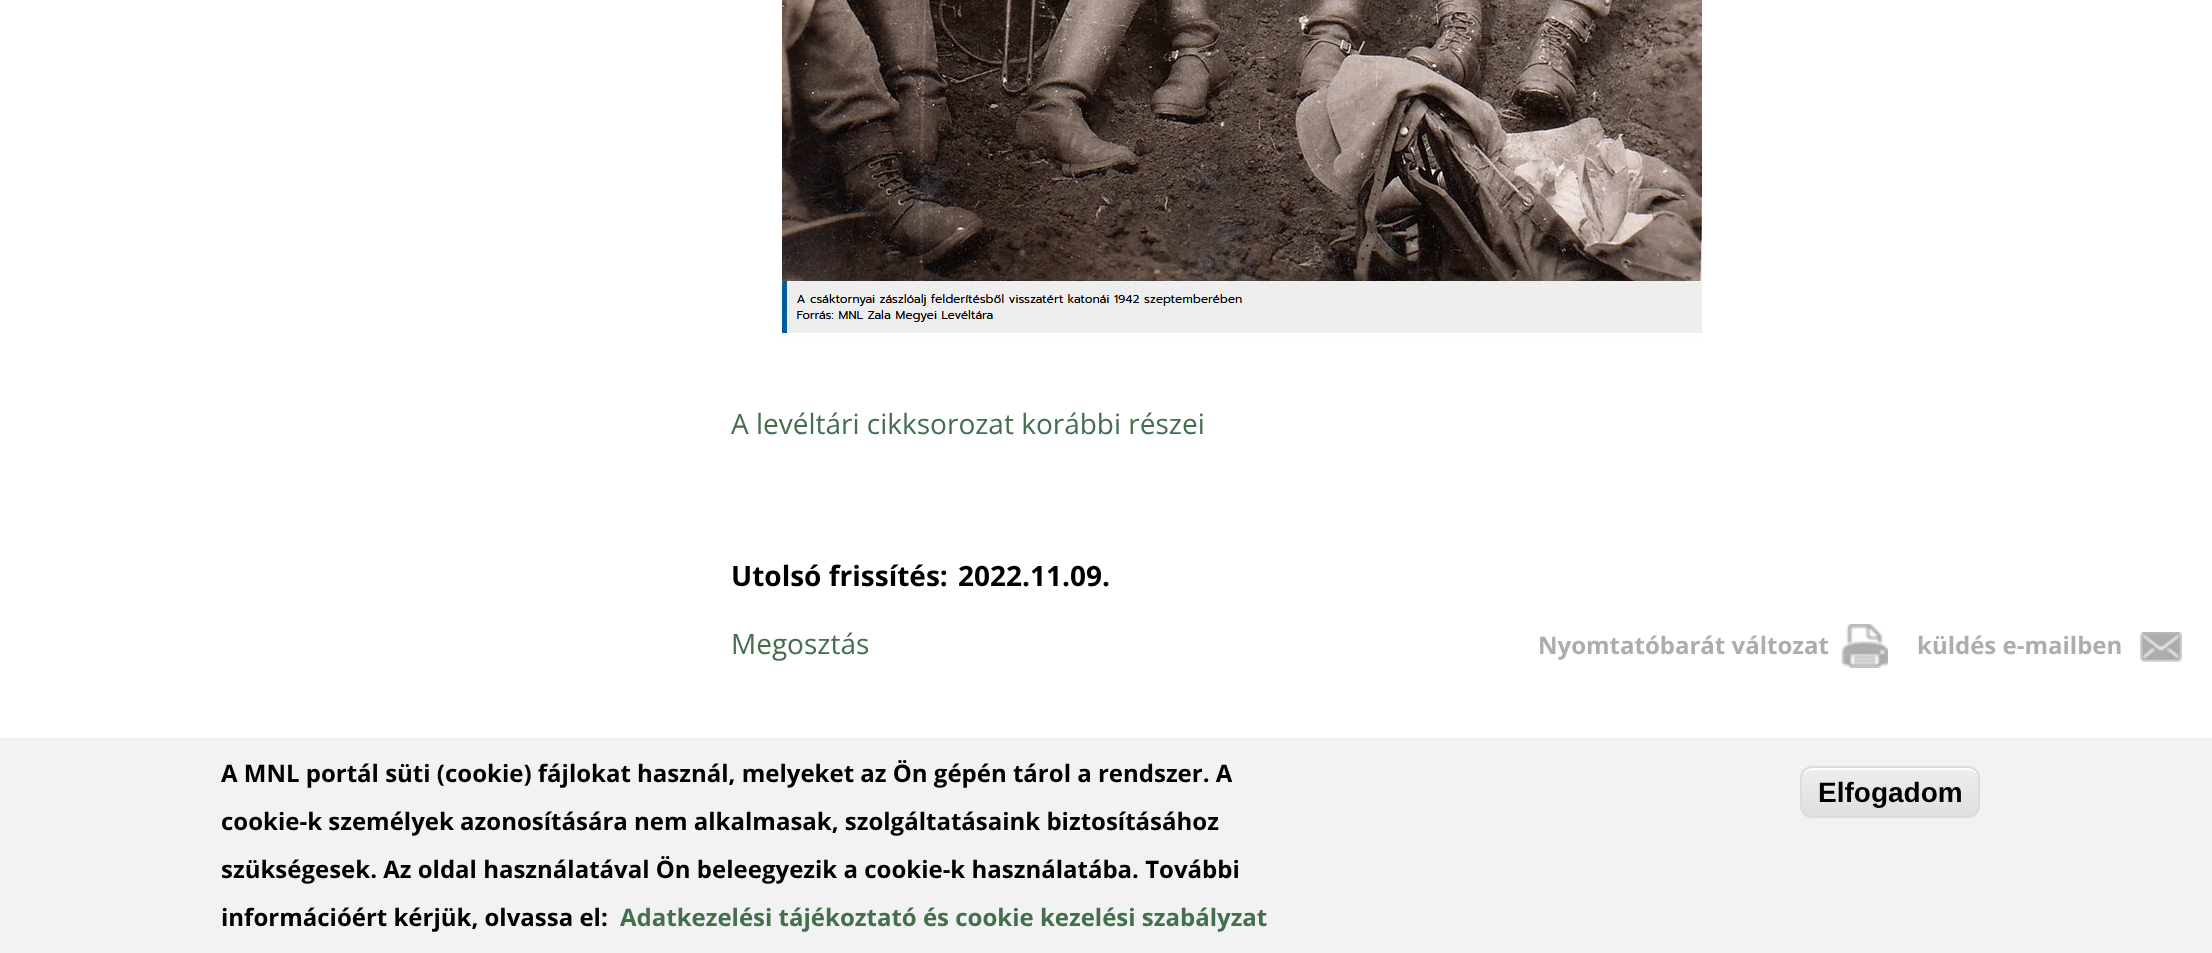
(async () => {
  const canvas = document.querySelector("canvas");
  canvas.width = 2212;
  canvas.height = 953;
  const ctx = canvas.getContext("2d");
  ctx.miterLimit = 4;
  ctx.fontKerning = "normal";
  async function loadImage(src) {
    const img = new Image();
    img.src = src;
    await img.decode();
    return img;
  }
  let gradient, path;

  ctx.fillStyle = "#ffffff";
  ctx.fillRect(0, 0, 2212, 953);
  ctx.drawImage(await loadImage("img/1.png"), 782, 0, 920, 340);
  ctx.drawImage(await loadImage("img/2.png"), 1841, 624, 47, 44);
  ctx.drawImage(await loadImage("img/3.png"), 2140, 632, 42, 30);
  ctx.fillStyle = "#f2f2f2";
  ctx.fillRect(0, 738, 2212, 215);
  ctx.save();
  ctx.beginPath();
  ctx.roundRect(1800, 766, 180, 52, 12);
  ctx.clip();
  gradient = ctx.createLinearGradient(1890, 768, 1890, 816);
  gradient.addColorStop(0.05, "#ededed");
  gradient.addColorStop(1, "#dfdfdf");
  ctx.fillStyle = gradient;
  ctx.fillRect(1800, 768, 180, 48);
  ctx.restore();
  ctx.fillStyle = "#ffffff";
  path = new Path2D("M1812 770H1968C1974 770 1978 774 1978 780V778C1978 772 1974 768 1968 768H1812C1806 768 1802 772 1802 778V780C1802 774 1806 770 1812 770Z");
  ctx.fill(path);
  ctx.beginPath();
  ctx.roundRect(1801, 767, 178, 50, 11);
  ctx.strokeStyle = "#dcdcdc";
  ctx.lineWidth = 2;
  ctx.stroke();
  ctx.font = "28px Open Sans";
  ctx.fillStyle = "#436f4d";
  ctx.fillText("A levéltári cikksorozat korábbi részei", 731, 434);
  ctx.font = "bold 28px Open Sans";
  ctx.fillStyle = "#000000";
  ctx.fillText("Utolsó frissítés:", 731, 586);
  ctx.fillText("2022.11.09.", 958, 586);
  ctx.font = "28px Open Sans";
  ctx.fillStyle = "#436f4d";
  ctx.fillText("Megosztás", 731, 654);
  ctx.font = "bold 24px Open Sans";
  ctx.fillStyle = "#adadad";
  ctx.fillText("Nyomtatóbarát változat", 1538, 654);
  ctx.fillText("küldés e-mailben", 1917, 654);
  ctx.fillStyle = "#000000";
  for (const [text, x, y] of [
    ["A MNL portál süti (cookie) fájlokat használ, melyeket az Ön gépén tárol a rendszer. A", 221, 782],
    ["cookie-k személyek azonosítására nem alkalmasak, szolgáltatásaink biztosításához", 221, 830],
    ["szükségesek. Az oldal használatával Ön beleegyezik a cookie-k használatába. További", 221, 878],
    ["információért kérjük, olvassa el:", 221, 926],
  ]) {
    ctx.fillText(text, x, y);
  }
  ctx.fillStyle = "#436f4d";
  ctx.fillText("Adatkezelési tájékoztató és cookie kezelési szabályzat", 620, 926);
  ctx.font = "bold 28px Liberation Sans";
  ctx.fillStyle = "#000000";
  ctx.fillText("Elfogadom", 1818, 802);
})();
